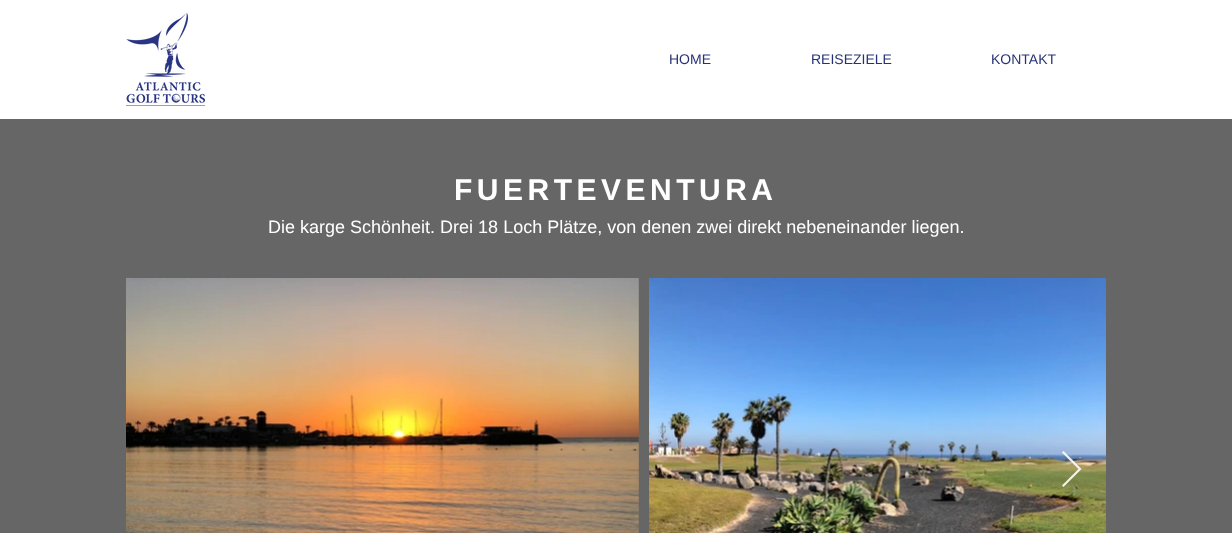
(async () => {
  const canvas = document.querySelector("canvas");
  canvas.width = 1232;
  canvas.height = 533;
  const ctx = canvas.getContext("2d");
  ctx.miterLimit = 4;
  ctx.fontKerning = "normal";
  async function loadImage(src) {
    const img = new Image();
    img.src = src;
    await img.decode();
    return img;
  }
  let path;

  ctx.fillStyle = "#666666";
  ctx.fillRect(0, 0, 1232, 533);
  ctx.fillStyle = "#ffffff";
  ctx.fillRect(0, 0, 1232, 119);
  ctx.drawImage(await loadImage("img/1.png"), 126, 13, 79, 93);
  ctx.drawImage(await loadImage("img/2.png"), 126, 278, 513, 255);
  ctx.drawImage(await loadImage("img/3.png"), 649, 278, 457, 255);
  ctx.fillStyle = "rgba(255, 255, 255, 0.9)";
  path = new Path2D("M1062 452.5L1063.5 451L1081.5 469L1063.5 487L1062 485.5L1078.5 469Z");
  ctx.fill(path);
  ctx.font = "14px Liberation Sans";
  ctx.fillStyle = "#273275";
  for (const [text, x, y] of [
    ["HOME", 669, 64],
    ["REISEZIELE", 811, 64],
    ["KONTAKT", 991, 64],
  ]) {
    ctx.fillText(text, x, y);
  }
  ctx.letterSpacing = "4.5px";
  ctx.font = "bold 30px Liberation Sans";
  ctx.fillStyle = "#ffffff";
  ctx.fillText("FUERTEVENTURA", 454, 200);
  ctx.letterSpacing = "0px";
  ctx.font = "18px Liberation Sans";
  ctx.fillText("Die karge Schönheit. Drei 18 Loch Plätze, von denen zwei direkt nebeneinander liegen.", 268, 233);
})();
